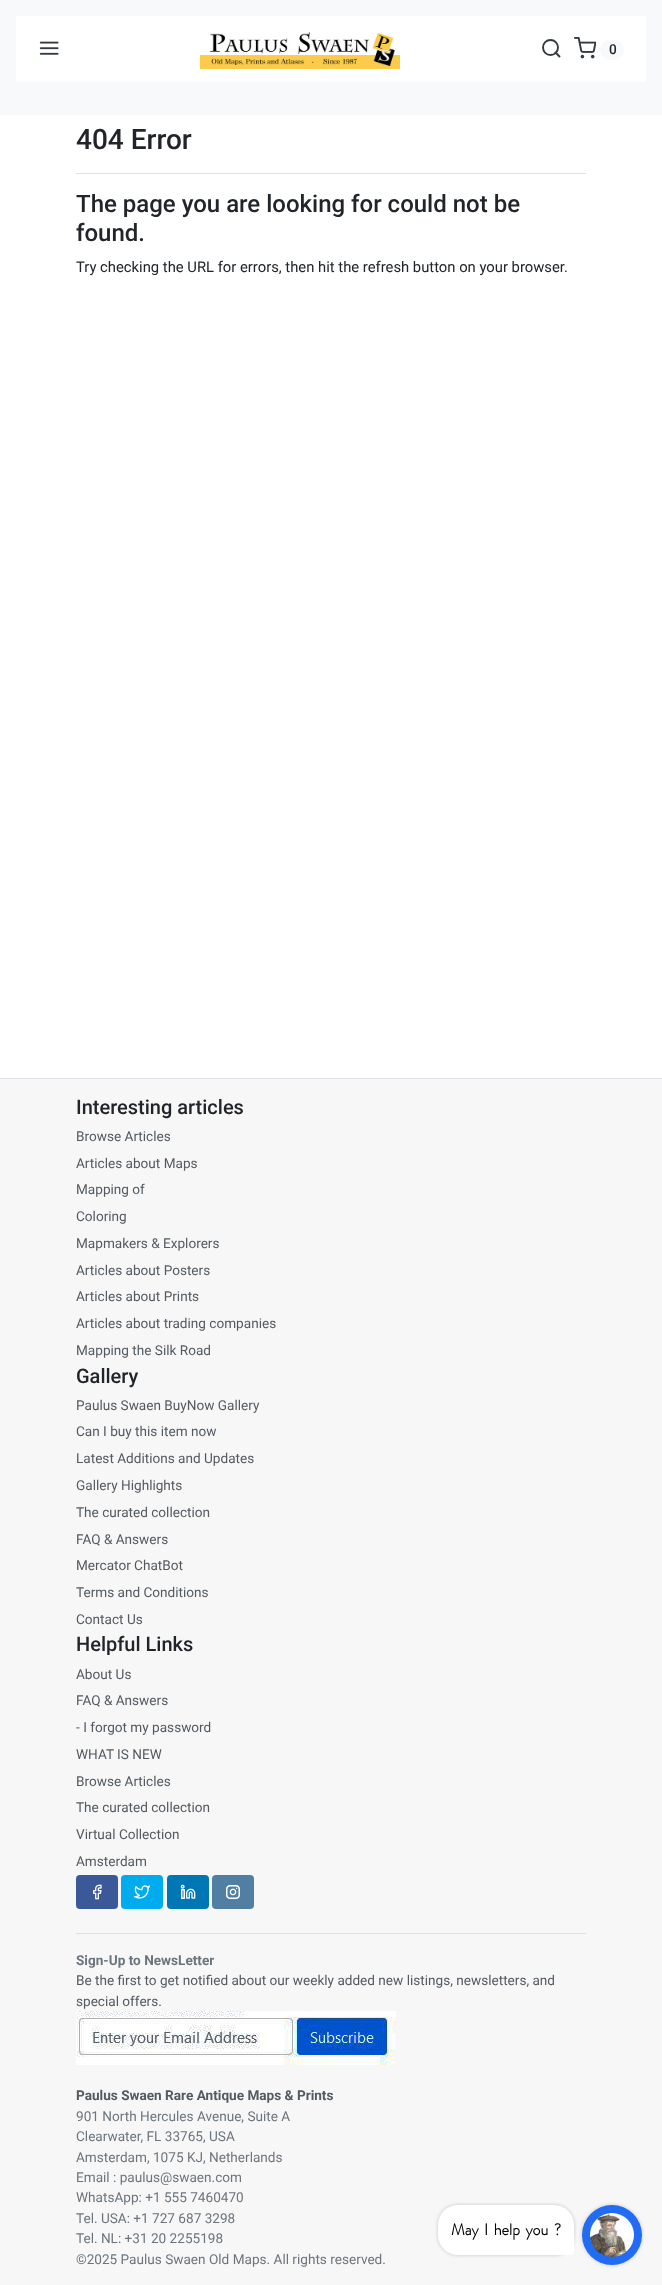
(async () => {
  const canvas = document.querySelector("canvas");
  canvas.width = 662;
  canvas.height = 2285;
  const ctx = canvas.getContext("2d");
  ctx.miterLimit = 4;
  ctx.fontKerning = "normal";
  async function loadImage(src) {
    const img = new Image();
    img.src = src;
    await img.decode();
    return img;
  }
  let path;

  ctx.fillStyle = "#ffffff";
  ctx.fillRect(0, 0, 662, 2285);
  ctx.fillStyle = "#f8f9fa";
  ctx.fillRect(0, 0, 662, 115);
  ctx.fillStyle = "#ffffff";
  ctx.fillRect(16, 16, 630, 66);
  ctx.drawImage(await loadImage("img/1.png"), 39, 41, 20, 14);
  ctx.drawImage(await loadImage("img/2.png"), 200, 32, 200, 37);
  ctx.beginPath();
  ctx.arc(550.5, 47.5, 7.5, 0, Math.PI * 2);
  ctx.strokeStyle = "#343a40";
  ctx.lineWidth = 1.9;
  ctx.stroke();
  path = new Path2D("M559.5 56.5L555.5 52.5");
  ctx.lineCap = "round";
  ctx.lineJoin = "round";
  ctx.stroke(path);
  ctx.drawImage(await loadImage("img/3.png"), 574, 37, 22, 22);
  ctx.fillStyle = "#f8f9fa";
  ctx.beginPath();
  ctx.roundRect(600, 40, 24, 20, 10);
  ctx.fill();
  for (const [x, y, w, h, color] of [
    [76, 173, 510, 1, "#dee2e6"],
    [0, 1079, 662, 1206, "#f7f7f7"],
    [0, 1078, 662, 1, "#dee2e6"],
  ]) {
    ctx.fillStyle = color;
    ctx.fillRect(x, y, w, h);
  }
  ctx.fillStyle = "#3b5998";
  ctx.beginPath();
  ctx.roundRect(76, 1875, 42, 34, 4);
  ctx.fill();
  ctx.drawImage(await loadImage("img/4.png"), 93, 1884, 9, 16);
  ctx.fillStyle = "#00aced";
  ctx.beginPath();
  ctx.roundRect(121, 1875, 42, 34, 4);
  ctx.fill();
  ctx.drawImage(await loadImage("img/5.png"), 134, 1885, 16, 14);
  ctx.fillStyle = "#0077b5";
  ctx.beginPath();
  ctx.roundRect(167, 1875, 42, 34, 4);
  ctx.fill();
  ctx.drawImage(await loadImage("img/6.png"), 180, 1884, 16, 15);
  ctx.fillStyle = "#517fa4";
  ctx.beginPath();
  ctx.roundRect(212, 1875, 42, 34, 4);
  ctx.fill();
  ctx.drawImage(await loadImage("img/7.png"), 226, 1885, 14, 14);
  ctx.fillStyle = "#dee2e6";
  ctx.fillRect(76, 1933, 510, 1);
  ctx.drawImage(await loadImage("img/8.png"), 76, 2011, 320, 54);
  ctx.fillStyle = "rgba(146, 146, 146, 0.3)";
  ctx.filter = "blur(1.5px)";
  ctx.beginPath();
  ctx.roundRect(437, 2204, 138, 52, 21);
  ctx.fill();
  ctx.filter = "none";
  ctx.fillStyle = "#ffffff";
  ctx.beginPath();
  ctx.roundRect(438, 2205, 136, 50, [20, 20, 3, 20]);
  ctx.fill();
  ctx.fillStyle = "rgba(146, 146, 146, 0.3)";
  ctx.filter = "blur(1.5px)";
  ctx.beginPath();
  ctx.roundRect(581, 2204, 62, 62, 31);
  ctx.fill();
  ctx.filter = "none";
  ctx.fillStyle = "#226cf4";
  ctx.beginPath();
  ctx.arc(612, 2235, 30, 0, Math.PI * 2);
  ctx.fill();
  ctx.drawImage(await loadImage("img/9.png"), 590, 2213, 44, 44);
  ctx.font = "500 13.6px Roboto";
  ctx.fillStyle = "#212529";
  ctx.fillText("0", 609, 54);
  ctx.font = "500 28px Roboto";
  ctx.fillText("404 Error", 76, 149);
  ctx.font = "500 24px Roboto";
  ctx.fillText("The page you are looking for could not be", 76, 212);
  ctx.fillText("found.", 76, 241);
  ctx.font = "14.8px Roboto";
  ctx.fillText("Try checking the URL for errors, then hit the refresh button on your browser.", 76, 272);
  ctx.font = "500 20px Roboto";
  ctx.fillText("Interesting articles", 76, 1114);
  ctx.font = "13.6px Roboto";
  ctx.fillStyle = "#535a61";
  for (const [text, x, y] of [
    ["Browse Articles", 76, 1141],
    ["Articles about Maps", 76, 1168],
    ["Mapping of", 76, 1194],
    ["Coloring", 76, 1221],
    ["Mapmakers & Explorers", 76, 1248],
    ["Articles about Posters", 76, 1275],
    ["Articles about Prints", 76, 1301],
    ["Articles about trading companies", 76, 1328],
    ["Mapping the Silk Road", 76, 1355],
  ]) {
    ctx.fillText(text, x, y);
  }
  ctx.font = "500 20px Roboto";
  ctx.fillStyle = "#212529";
  ctx.fillText("Gallery", 76, 1383);
  ctx.font = "13.6px Roboto";
  ctx.fillStyle = "#535a61";
  for (const [text, x, y] of [
    ["Paulus Swaen BuyNow Gallery", 76, 1410],
    ["Can I buy this item now", 76, 1436],
    ["Latest Additions and Updates", 76, 1463],
    ["Gallery Highlights", 76, 1490],
    ["The curated collection", 76, 1517],
    ["FAQ & Answers", 76, 1544],
    ["Mercator ChatBot", 76, 1570],
    ["Terms and Conditions", 76, 1597],
    ["Contact Us", 76, 1624],
  ]) {
    ctx.fillText(text, x, y);
  }
  ctx.font = "500 20px Roboto";
  ctx.fillStyle = "#212529";
  ctx.fillText("Helpful Links", 76, 1651);
  ctx.font = "13.6px Roboto";
  ctx.fillStyle = "#535a61";
  for (const [text, x, y] of [
    ["About Us", 76, 1679],
    ["FAQ & Answers", 76, 1705],
    ["- I forgot my password", 76, 1732],
    ["WHAT IS NEW", 76, 1759],
    ["Browse Articles", 76, 1786],
    ["The curated collection", 76, 1812],
    ["Virtual Collection", 76, 1839],
    ["Amsterdam", 76, 1866],
  ]) {
    ctx.fillText(text, x, y);
  }
  ctx.font = "bold 13.6px Roboto";
  ctx.fillStyle = "#6c757d";
  ctx.fillText("Sign-Up to NewsLetter", 76, 1965);
  ctx.font = "13.6px Roboto";
  ctx.fillStyle = "#535a61";
  ctx.fillText("Be the first to get notified about our weekly added new listings, newsletters, and", 76, 1985);
  ctx.fillText("special offers.", 76, 2006);
  ctx.font = "bold 13.6px Roboto";
  ctx.fillText("Paulus Swaen Rare Antique Maps & Prints", 76, 2100);
  ctx.font = "13.6px Roboto";
  ctx.fillStyle = "#6c757d";
  for (const [text, x, y] of [
    ["901 North Hercules Avenue, Suite A", 76, 2121],
    ["Clearwater, FL 33765, USA", 76, 2141],
    ["Amsterdam, 1075 KJ, Netherlands", 76, 2162],
    ["Email : paulus@swaen.com", 76, 2182],
    ["WhatsApp: +1 555 7460470", 76, 2202],
    ["Tel. USA: +1 727 687 3298", 76, 2223],
    ["Tel. NL: +31 20 2255198", 76, 2243],
    ["©2025 Paulus Swaen Old Maps. All rights reserved.", 76, 2264],
  ]) {
    ctx.fillText(text, x, y);
  }
  ctx.wordSpacing = "2px";
  ctx.font = "bold 16px Brandon Grotesque";
  ctx.fillStyle = "#000000";
  ctx.fillText("May I help you ?", 451, 2235);
})();
